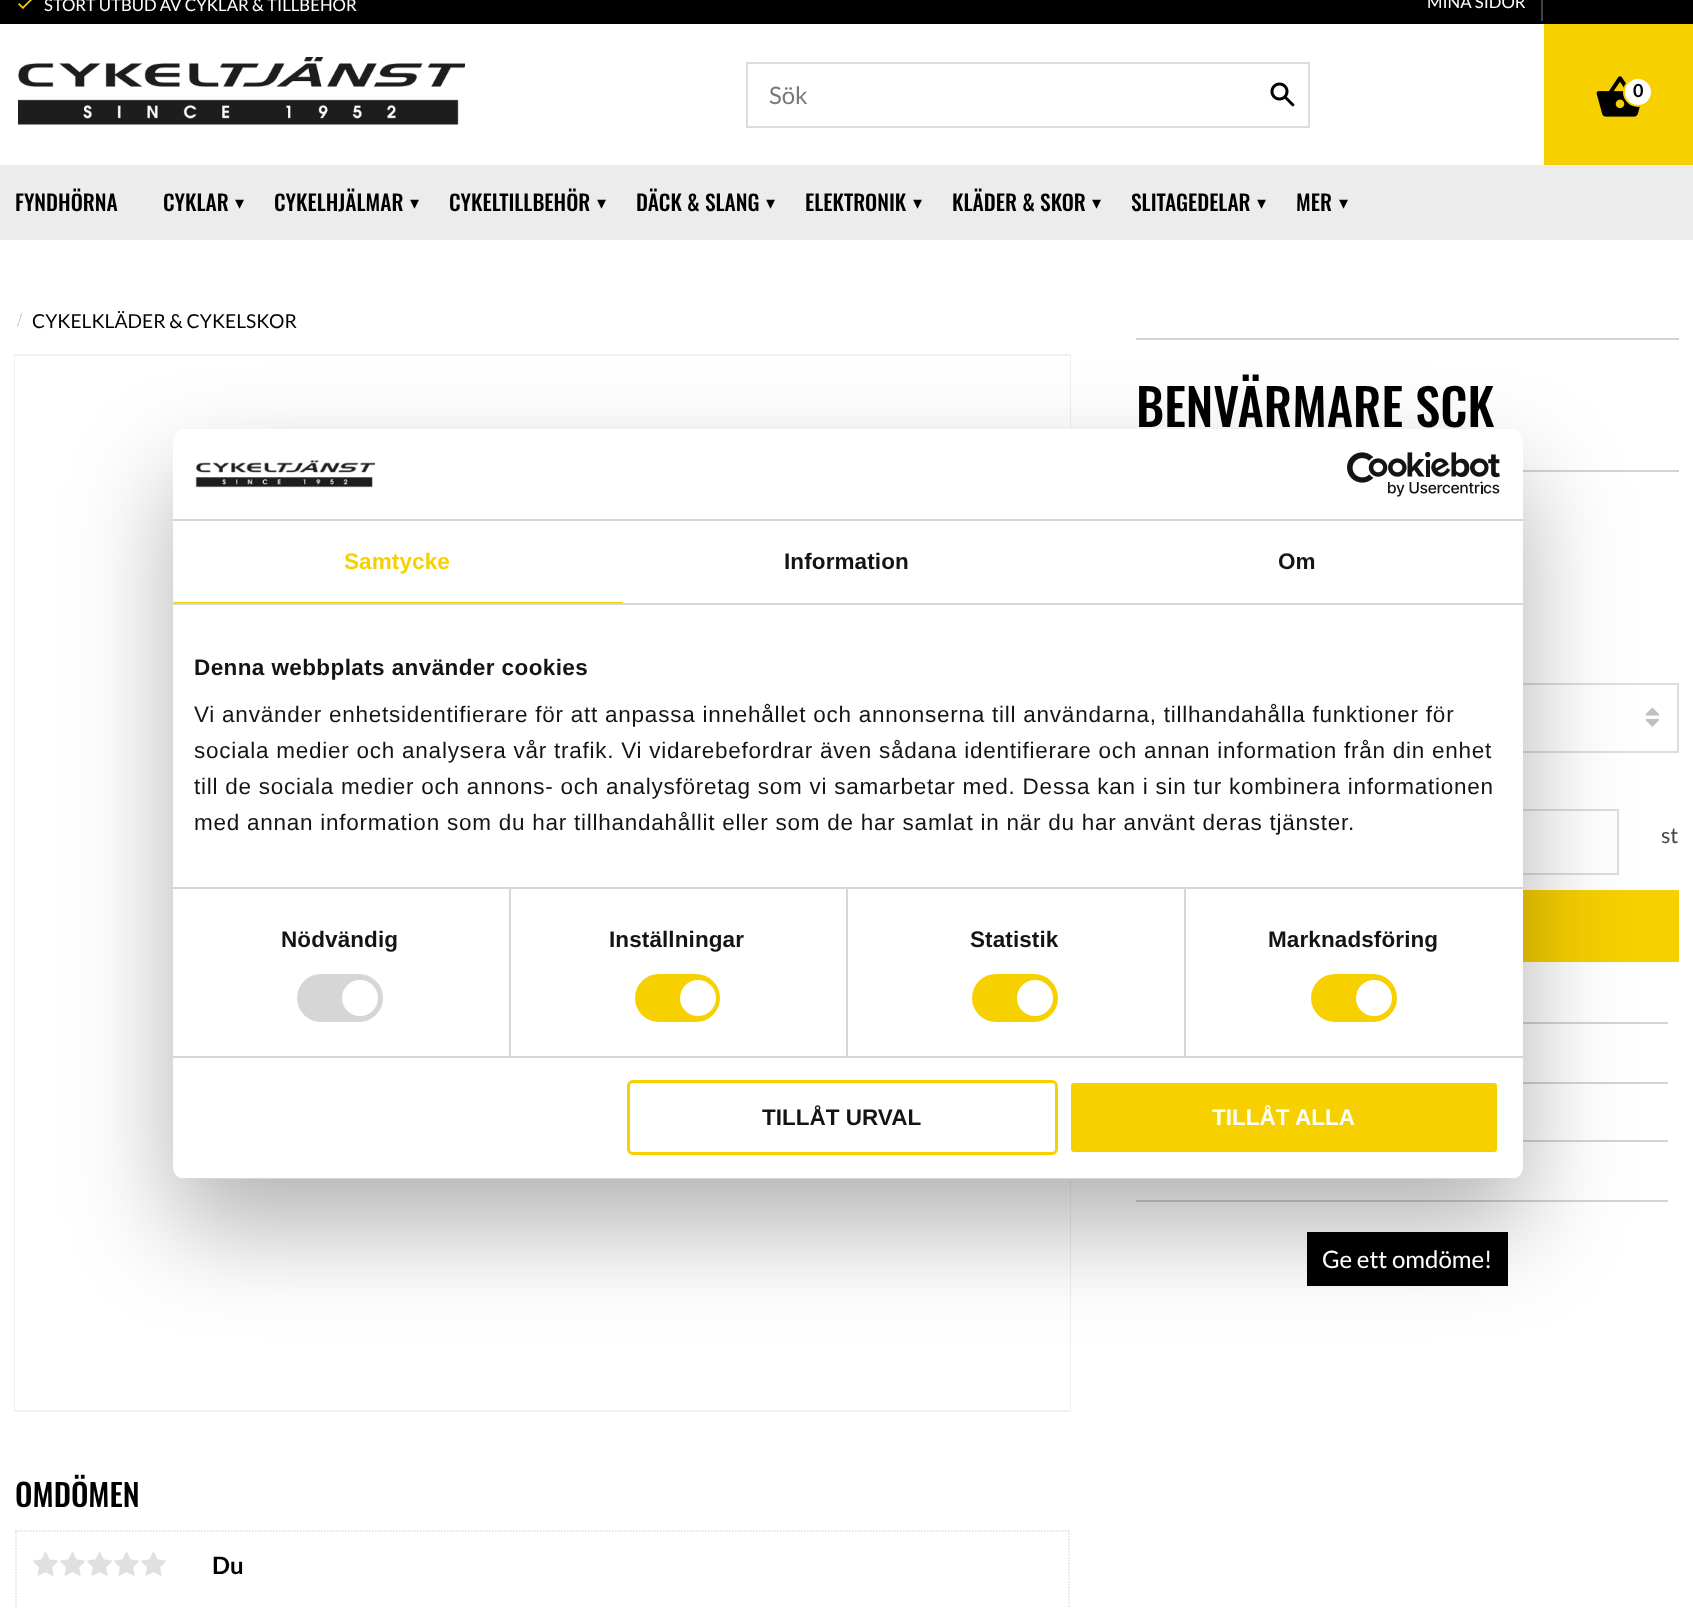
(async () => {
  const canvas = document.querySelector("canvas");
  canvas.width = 1693;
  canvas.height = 1608;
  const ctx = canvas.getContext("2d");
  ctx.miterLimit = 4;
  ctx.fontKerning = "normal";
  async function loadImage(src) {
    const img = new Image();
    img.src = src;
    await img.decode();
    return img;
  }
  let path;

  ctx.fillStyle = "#ffffff";
  ctx.fillRect(0, 0, 1693, 1608);
  ctx.fillStyle = "#000000";
  ctx.fillRect(0, 0, 1693, 24);
  ctx.drawImage(await loadImage("img/1.png"), 18, 0, 14, 9);
  ctx.fillStyle = "#444444";
  ctx.fillRect(1541, 0, 2, 21);
  ctx.strokeStyle = "#dddddd";
  ctx.lineWidth = 2;
  ctx.strokeRect(747, 63, 562, 64);
  ctx.drawImage(await loadImage("img/2.png"), 1270, 82, 25, 25);
  ctx.fillStyle = "#f7d000";
  ctx.fillRect(1544, 24, 149, 141);
  ctx.drawImage(await loadImage("img/3.png"), 1596, 76, 44, 41);
  ctx.fillStyle = "#ffffff";
  ctx.beginPath();
  ctx.arc(1638, 92, 14, 0, Math.PI * 2);
  ctx.fill();
  ctx.strokeStyle = "#f7d000";
  ctx.stroke();
  ctx.drawImage(await loadImage("img/4.png"), 18, 57, 447, 68);
  for (const [x, y, w, h, color] of [
    [0, 165, 1693, 75, "#ececec"],
    [1136, 338, 543, 2, "#d4d4d4"],
    [1523, 470, 156, 2, "#d4d4d4"],
  ]) {
    ctx.fillStyle = color;
    ctx.fillRect(x, y, w, h);
  }
  ctx.strokeStyle = "#f0f0f0";
  ctx.strokeRect(15, 355, 1055, 1056);
  ctx.fillStyle = "#ffffff";
  ctx.fillRect(15, 356, 1055, 1054);
  ctx.strokeStyle = "#dddddd";
  ctx.strokeRect(1137, 684, 541, 68);
  ctx.drawImage(await loadImage("img/5.png"), 1645, 707, 15, 20);
  ctx.strokeRect(1137, 810, 481, 64);
  for (const [x, y, w, h, color] of [
    [1523, 890, 156, 72, "#f7d000"],
    [1523, 1022, 145, 2, "#d4d4d4"],
    [1523, 1082, 145, 2, "#d4d4d4"],
    [1523, 1140, 145, 2, "#d4d4d4"],
    [1136, 1200, 532, 2, "#d4d4d4"],
    [1307, 1232, 201, 54, "#000000"],
  ]) {
    ctx.fillStyle = color;
    ctx.fillRect(x, y, w, h);
  }
  path = new Path2D("M15 1531H1069.5");
  ctx.lineWidth = 1.5;
  ctx.setLineDash([1.5, 1.5]);
  ctx.stroke(path);
  path = new Path2D("M1069 1530V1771.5");
  ctx.stroke(path);
  path = new Path2D("M16 1530V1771.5");
  ctx.stroke(path);
  ctx.drawImage(await loadImage("img/6.png"), 33, 1552, 25, 24);
  ctx.drawImage(await loadImage("img/6.png"), 60, 1552, 25, 24);
  ctx.drawImage(await loadImage("img/6.png"), 87, 1552, 25, 24);
  ctx.drawImage(await loadImage("img/6.png"), 114, 1552, 25, 24);
  ctx.drawImage(await loadImage("img/6.png"), 141, 1552, 25, 24);
  ctx.fillStyle = "rgba(0, 0, 0, 0.3)";
  ctx.filter = "blur(51px)";
  ctx.beginPath();
  ctx.roundRect(173, 477, 1350, 750, 12);
  ctx.fill();
  ctx.filter = "none";
  ctx.fillStyle = "#ffffff";
  ctx.beginPath();
  ctx.roundRect(173, 429, 1350, 750, 12);
  ctx.fill();
  ctx.fillStyle = "#d6d6d6";
  ctx.fillRect(173, 519, 1350, 2);
  ctx.drawImage(await loadImage("img/7.png"), 195, 460, 180, 28);
  ctx.drawImage(await loadImage("img/8.png"), 1347, 452, 153, 45);
  for (const [x, y, w, h, color] of [
    [173, 603, 1350, 2, "#d6d6d6"],
    [173, 602, 450, 1, "#f7d000"],
    [509, 888, 2, 168, "#d6d6d6"],
    [846, 888, 2, 168, "#d6d6d6"],
    [1184, 888, 2, 168, "#d6d6d6"],
    [173, 887, 1350, 2, "#d6d6d6"],
    [173, 1056, 1350, 2, "#d6d6d6"],
  ]) {
    ctx.fillStyle = color;
    ctx.fillRect(x, y, w, h);
  }
  ctx.beginPath();
  ctx.roundRect(297, 974, 86, 48, 24);
  ctx.fill();
  ctx.fillStyle = "#ffffff";
  ctx.beginPath();
  ctx.arc(360, 998, 18, 0, Math.PI * 2);
  ctx.fill();
  ctx.fillStyle = "#f7d000";
  ctx.beginPath();
  ctx.roundRect(635, 974, 85, 48, 24);
  ctx.fill();
  ctx.fillStyle = "#ffffff";
  ctx.beginPath();
  ctx.arc(698, 998, 18, 0, Math.PI * 2);
  ctx.fill();
  ctx.fillStyle = "#f7d000";
  ctx.beginPath();
  ctx.roundRect(972, 974, 86, 48, 24);
  ctx.fill();
  ctx.fillStyle = "#ffffff";
  ctx.beginPath();
  ctx.arc(1035, 998, 18, 0, Math.PI * 2);
  ctx.fill();
  ctx.fillStyle = "#f7d000";
  ctx.beginPath();
  ctx.roundRect(1311, 974, 86, 48, 24);
  ctx.fill();
  ctx.fillStyle = "#ffffff";
  ctx.beginPath();
  ctx.arc(1374, 998, 18, 0, Math.PI * 2);
  ctx.fill();
  ctx.save();
  ctx.beginPath();
  ctx.roundRect(173, 429, 1350, 750, 12);
  ctx.clip();
  ctx.fillStyle = "#d6d6d6";
  ctx.fillRect(173, 1178, 1350, 1);
  ctx.restore();
  ctx.beginPath();
  ctx.roundRect(628.5, 1081.5, 428, 72, 4.5);
  ctx.strokeStyle = "#f7d000";
  ctx.lineWidth = 3;
  ctx.setLineDash([]);
  ctx.stroke();
  ctx.fillStyle = "#f7d000";
  ctx.beginPath();
  ctx.roundRect(1069.5, 1081.5, 429, 72, 4.5);
  ctx.fill();
  ctx.strokeStyle = "#ffffff";
  ctx.stroke();
  ctx.font = "16.75px Lato";
  ctx.fillStyle = "#ffffff";
  ctx.fillText("STORT UTBUD AV CYKLAR & TILLBEHÖR", 44, 11);
  ctx.fillText("MINA SIDOR", 1427, 8);
  ctx.font = "24px Lato";
  ctx.fillStyle = "#787878";
  ctx.fillText("Sök", 769, 104);
  ctx.font = "bold 18px Lato";
  ctx.fillStyle = "#000000";
  ctx.fillText("0", 1633, 97);
  ctx.font = "500 21.5px Oswald";
  ctx.fillText("FYNDHÖRNA", 15, 211);
  ctx.fillText("CYKLAR", 163, 211);
  ctx.font = "18px DejaVu Sans";
  ctx.fillText("▾", 235, 209);
  ctx.font = "500 21.5px Oswald";
  ctx.fillText("CYKELHJÄLMAR", 274, 211);
  ctx.font = "18px DejaVu Sans";
  ctx.fillText("▾", 410, 209);
  ctx.font = "500 21.5px Oswald";
  ctx.fillText("CYKELTILLBEHÖR", 449, 211);
  ctx.font = "18px DejaVu Sans";
  ctx.fillText("▾", 597, 209);
  ctx.font = "500 21.5px Oswald";
  ctx.fillText("DÄCK & SLANG", 636, 211);
  ctx.font = "18px DejaVu Sans";
  ctx.fillText("▾", 766, 209);
  ctx.font = "500 21.5px Oswald";
  ctx.fillText("ELEKTRONIK", 805, 211);
  ctx.font = "18px DejaVu Sans";
  ctx.fillText("▾", 913, 209);
  ctx.font = "500 21.5px Oswald";
  ctx.fillText("KLÄDER & SKOR", 952, 211);
  ctx.font = "18px DejaVu Sans";
  ctx.fillText("▾", 1092, 209);
  ctx.font = "500 21.5px Oswald";
  ctx.fillText("SLITAGEDELAR", 1131, 211);
  ctx.font = "18px DejaVu Sans";
  ctx.fillText("▾", 1257, 209);
  ctx.font = "500 21.5px Oswald";
  ctx.fillText("MER", 1296, 211);
  ctx.font = "18px DejaVu Sans";
  ctx.fillText("▾", 1339, 209);
  ctx.font = "19.25px Liberation Serif";
  ctx.fillStyle = "#c3c3c3";
  ctx.fillText("/", 17, 326);
  ctx.font = "19.25px Lato";
  ctx.fillStyle = "#000000";
  ctx.fillText("CYKELKLÄDER & CYKELSKOR", 32, 328);
  ctx.font = "500 50.5px Oswald";
  ctx.fillText("BENVÄRMARE SCK", 1136, 427);
  ctx.font = "21.5px Lato";
  ctx.fillStyle = "#444444";
  ctx.fillText("st", 1661, 843);
  ctx.font = "24px Lato";
  ctx.fillStyle = "#ffffff";
  ctx.fillText("Ge ett omdöme!", 1322, 1268);
  ctx.font = "500 31px Oswald";
  ctx.fillStyle = "#000000";
  ctx.fillText("OMDÖMEN", 15, 1507);
  ctx.font = "bold 24px Lato";
  ctx.fillText("Du", 212, 1574);
  ctx.letterSpacing = "0.1px";
  ctx.font = "bold 22.5px Liberation Sans";
  ctx.fillStyle = "#f7d000";
  ctx.fillText("Samtycke", 344, 569);
  ctx.fillStyle = "#141414";
  ctx.fillText("Information", 784, 569);
  ctx.fillText("Om", 1278, 569);
  ctx.letterSpacing = "0.4px";
  ctx.fillText("Denna webbplats använder cookies", 194, 675);
  ctx.letterSpacing = "0.75px";
  ctx.font = "22.5px Liberation Sans";
  for (const [text, x, y] of [
    ["Vi använder enhetsidentifierare för att anpassa innehållet och annonserna till användarna, tillhandahålla funktioner för", 194, 722],
    ["sociala medier och analysera vår trafik. Vi vidarebefordrar även sådana identifierare och annan information från din enhet", 194, 758],
    ["till de sociala medier och annons- och analysföretag som vi samarbetar med. Dessa kan i sin tur kombinera informationen", 194, 794],
    ["med annan information som du har tillhandahållit eller som de har samlat in när du har använt deras tjänster.", 194, 830],
  ]) {
    ctx.fillText(text, x, y);
  }
  ctx.letterSpacing = "0.1px";
  ctx.font = "bold 22.5px Liberation Sans";
  for (const [text, x, y] of [
    ["Nödvändig", 281, 947],
    ["Inställningar", 609, 947],
    ["Statistik", 970, 947],
    ["Marknadsföring", 1268, 947],
  ]) {
    ctx.fillText(text, x, y);
  }
  ctx.letterSpacing = "0px";
  ctx.fillText("TILLÅT URVAL", 762, 1125);
  ctx.fillStyle = "#ffffff";
  ctx.fillText("TILLÅT ALLA", 1212, 1125);
})();
